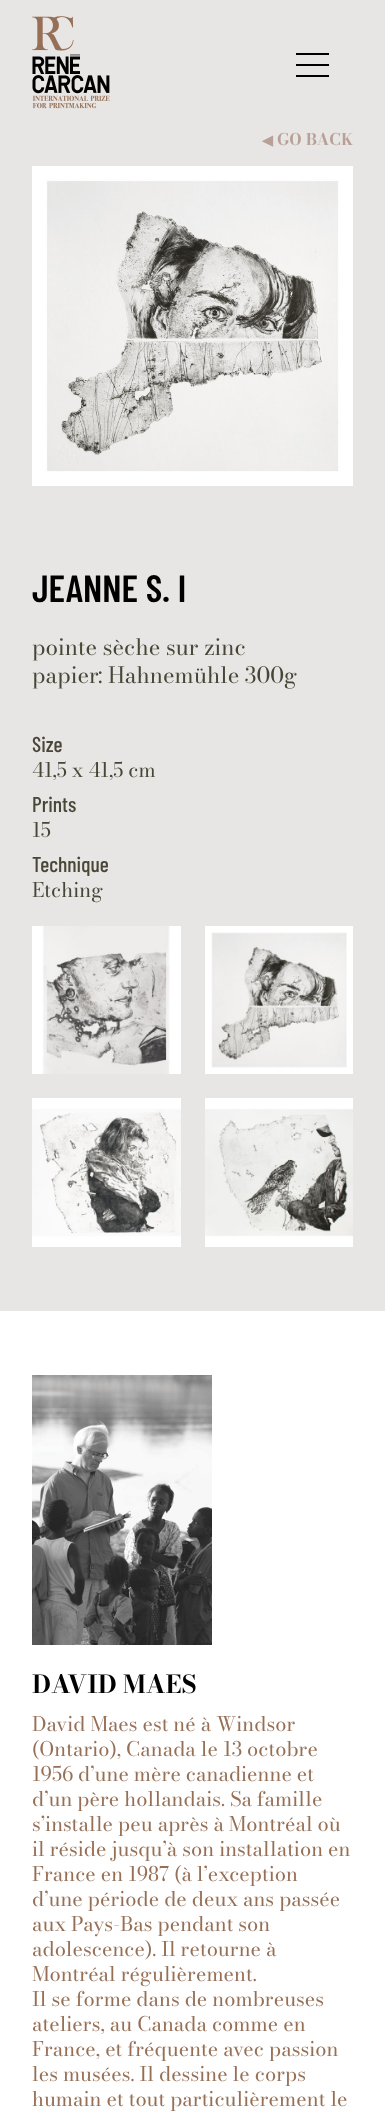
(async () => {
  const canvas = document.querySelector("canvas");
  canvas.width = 385;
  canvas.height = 2118;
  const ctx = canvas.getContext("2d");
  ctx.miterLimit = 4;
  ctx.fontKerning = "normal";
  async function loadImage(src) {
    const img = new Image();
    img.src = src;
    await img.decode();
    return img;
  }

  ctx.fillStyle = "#e7e6e5";
  ctx.fillRect(0, 0, 385, 2118);
  ctx.drawImage(await loadImage("img/1.png"), 32, 16, 78, 93);
  for (const [x, y, w, h, color] of [
    [296, 53, 33, 2, "#000000"],
    [296, 64, 33, 2, "#000000"],
    [296, 75, 33, 2, "#000000"],
  ]) {
    ctx.fillStyle = color;
    ctx.fillRect(x, y, w, h);
  }
  ctx.drawImage(await loadImage("img/2.png"), 32, 166, 321, 320);
  ctx.drawImage(await loadImage("img/3.png"), 32, 926, 149, 148);
  ctx.drawImage(await loadImage("img/4.png"), 205, 926, 148, 148);
  ctx.drawImage(await loadImage("img/5.png"), 32, 1098, 149, 149);
  ctx.drawImage(await loadImage("img/6.png"), 205, 1098, 148, 149);
  ctx.fillStyle = "#ffffff";
  ctx.fillRect(0, 1311, 385, 807);
  ctx.drawImage(await loadImage("img/7.png"), 32, 1375, 180, 270);
  ctx.font = "bold 14px DejaVu Sans";
  ctx.fillStyle = "#b9a096";
  ctx.fillText("◀︎", 262, 145);
  ctx.font = "bold 16px Bodoni Moda";
  ctx.fillText("GO BACK", 277, 145);
  ctx.font = "600 38px Barlow Condensed";
  ctx.fillStyle = "#000000";
  ctx.fillText("JEANNE S. I", 32, 602);
  ctx.font = "22.25px Bodoni Moda";
  ctx.fillStyle = "#4a4637";
  ctx.fillText("pointe sèche sur zinc", 32, 655);
  ctx.fillText("papier: Hahnemühle 300g", 32, 683);
  ctx.font = "500 21.5px Barlow Condensed";
  ctx.fillText("Size", 32, 752);
  ctx.font = "20px Bodoni Moda";
  ctx.fillText("41,5 x 41,5 cm", 32, 777);
  ctx.font = "500 21.5px Barlow Condensed";
  ctx.fillText("Prints", 32, 812);
  ctx.font = "20px Bodoni Moda";
  ctx.fillText("15", 32, 837);
  ctx.font = "500 21.5px Barlow Condensed";
  ctx.fillText("Technique", 32, 872);
  ctx.font = "20px Bodoni Moda";
  ctx.fillText("Etching", 32, 897);
  ctx.font = "bold 24.75px Bodoni Moda";
  ctx.fillStyle = "#000000";
  ctx.fillText("DAVID MAES", 32, 1693);
  ctx.font = "20px Bodoni Moda";
  ctx.fillStyle = "#967056";
  for (const [text, x, y] of [
    ["David Maes est né à Windsor", 32, 1731],
    ["(Ontario), Canada le 13 octobre", 32, 1756],
    ["1956 d’une mère canadienne et", 32, 1781],
    ["d’un père hollandais. Sa famille", 32, 1806],
    ["s’installe peu après à Montréal où", 32, 1831],
    ["il réside jusqu’à son installation en", 32, 1856],
    ["France en 1987 (à l’exception", 32, 1881],
    ["d’une période de deux ans passée", 32, 1906],
    ["aux Pays-Bas pendant son", 32, 1931],
    ["adolescence). Il retourne à", 32, 1956],
    ["Montréal régulièrement.", 32, 1981],
    ["Il se forme dans de nombreuses", 32, 2006],
    ["ateliers, au Canada comme en", 32, 2031],
    ["France, et fréquente avec passion", 32, 2056],
    ["les musées. Il dessine le corps", 32, 2081],
    ["humain et tout particulièrement le", 32, 2106],
  ]) {
    ctx.fillText(text, x, y);
  }
})();
